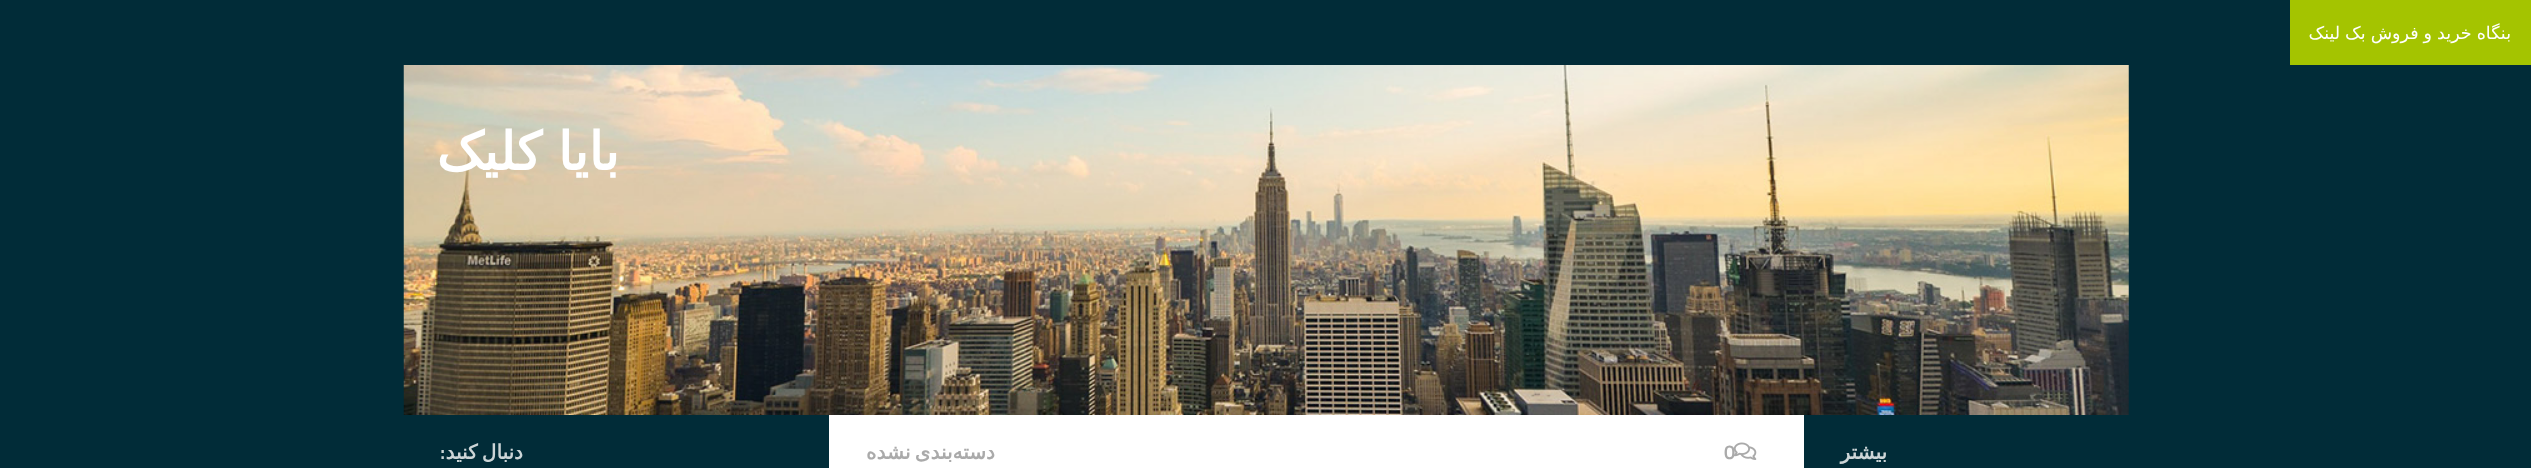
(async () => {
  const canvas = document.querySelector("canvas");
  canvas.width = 2531;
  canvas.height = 468;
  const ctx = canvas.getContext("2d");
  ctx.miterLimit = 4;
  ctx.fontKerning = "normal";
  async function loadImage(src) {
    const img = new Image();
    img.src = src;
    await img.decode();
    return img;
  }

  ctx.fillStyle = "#012c38";
  ctx.fillRect(0, 0, 2531, 468);
  ctx.fillStyle = "#a4c400";
  ctx.fillRect(2290, 0, 241, 65);
  ctx.drawImage(await loadImage("img/1.png"), 403, 65, 1726, 350);
  ctx.fillStyle = "#ffffff";
  ctx.fillRect(829, 415, 975, 53);
  ctx.drawImage(await loadImage("img/2.png"), 1733, 442, 24, 18);
  ctx.wordSpacing = "-0.5px";
  ctx.direction = "rtl";
  ctx.font = "17.5px DejaVu Sans";
  ctx.fillText("بنگاه خرید و فروش بک لینک", 2511, 39);
  ctx.letterSpacing = "-0.6px";
  ctx.wordSpacing = "0px";
  ctx.font = "bold 52.5px DejaVu Sans";
  ctx.fillText("بایا کلیک", 619, 170);
  ctx.letterSpacing = "0px";
  ctx.font = "bold 20px DejaVu Sans";
  ctx.fillStyle = "#ccd5d7";
  ctx.fillText("بیشتر", 1887, 459);
  ctx.direction = "ltr";
  ctx.font = "600 20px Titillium";
  ctx.fillStyle = "#aaaaaa";
  ctx.fillText("0", 1724, 459);
  ctx.wordSpacing = "-2px";
  ctx.direction = "rtl";
  ctx.font = "bold 20px DejaVu Sans";
  ctx.fillText("دسته‌بندی نشده", 995, 459);
  ctx.fillStyle = "#ccd5d7";
  ctx.fillText("دنبال کنید", 523, 459);
  ctx.wordSpacing = "0px";
  ctx.font = "600 20px Titillium";
  ctx.fillText(":", 445, 459);
})();
